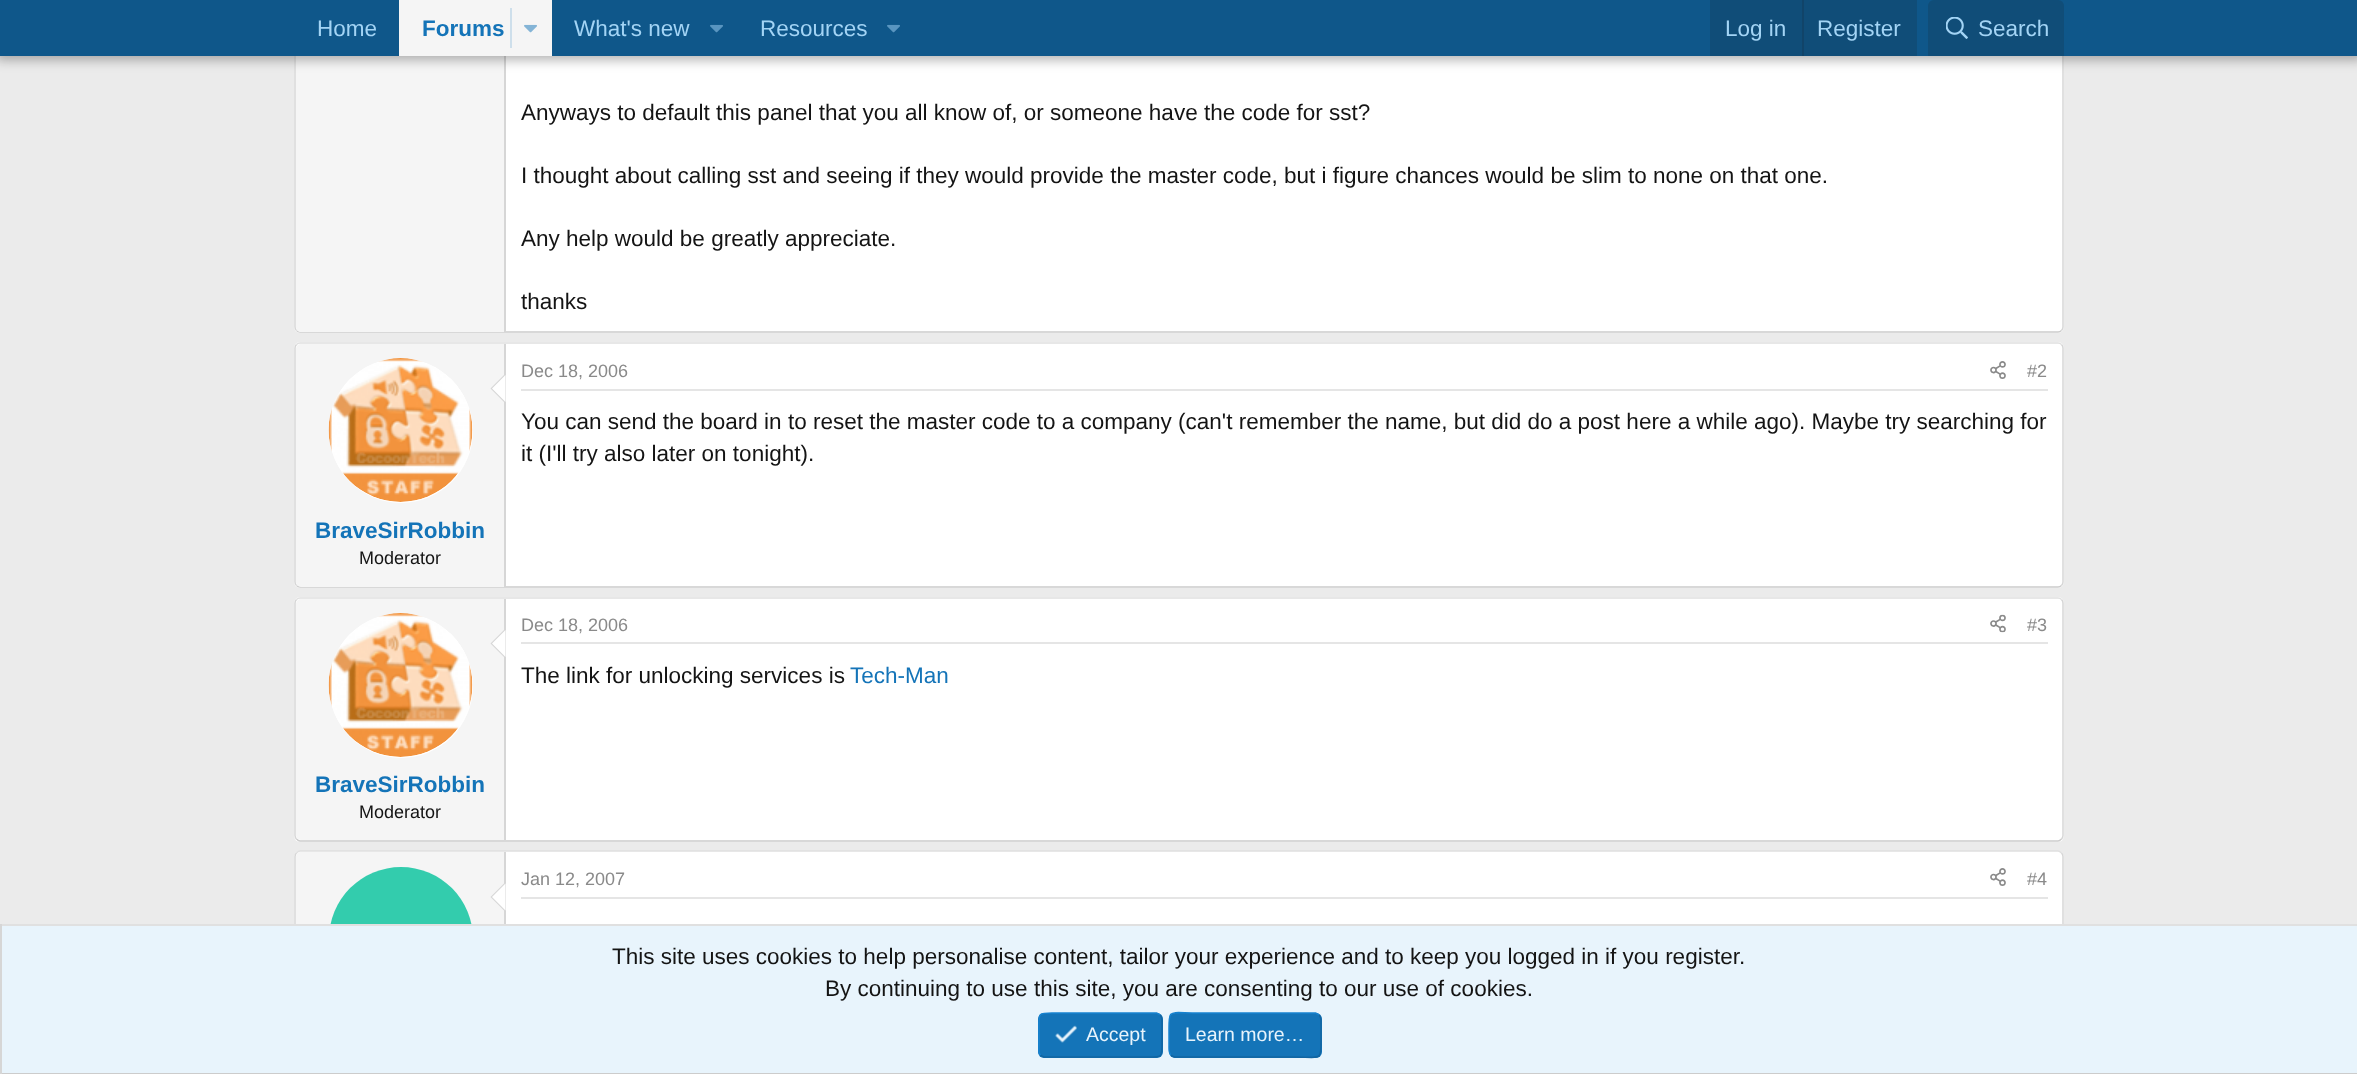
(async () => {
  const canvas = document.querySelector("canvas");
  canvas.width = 2357;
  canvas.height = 1074;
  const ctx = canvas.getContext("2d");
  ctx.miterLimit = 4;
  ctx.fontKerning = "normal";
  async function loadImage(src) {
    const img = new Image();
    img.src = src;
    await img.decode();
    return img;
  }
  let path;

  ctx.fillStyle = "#ebebeb";
  ctx.fillRect(0, 0, 2357, 1074);
  ctx.fillStyle = "#ffffff";
  ctx.beginPath();
  ctx.roundRect(294, -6, 1770, 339, 6);
  ctx.fill();
  path = new Path2D("M2061.5-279.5C2062.5-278.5 2063-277.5 2063-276V327C2063 328.5 2062.5 329.5 2061.5 330.5");
  ctx.strokeStyle = "#d6d6d6";
  ctx.lineWidth = 1.5;
  ctx.stroke(path);
  path = new Path2D("M2061.5 330.5C2060.5 331.5 2059.5 332 2058 332H300C298.5 332 297.5 331.5 296.5 330.5");
  ctx.strokeStyle = "#cccccc";
  ctx.stroke(path);
  path = new Path2D("M296.5 330.5C295.5 329.5 295 328.5 295 327V-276C295-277.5 295.5-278.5 296.5-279.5");
  ctx.strokeStyle = "#d6d6d6";
  ctx.stroke(path);
  ctx.fillStyle = "#f5f5f5";
  path = new Path2D("M301-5H506V332H301C298 332 296 330 296 327V0C296-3 298-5 301-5Z");
  ctx.fill(path);
  ctx.fillStyle = "#d6d6d6";
  ctx.fillRect(504, 56, 2, 276);
  ctx.fillStyle = "rgba(0, 0, 0, 0.3)";
  ctx.filter = "blur(6px)";
  ctx.beginPath();
  ctx.rect(-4, -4, 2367, 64);
  ctx.fill();
  ctx.filter = "none";
  for (const [x, y, w, h, color] of [
    [0, 0, 2357, 56, "#0f578a"],
    [399, 0, 153, 56, "#f5f5f5"],
    [510, 8, 2, 40, "#cedfeb"],
  ]) {
    ctx.fillStyle = color;
    ctx.fillRect(x, y, w, h);
  }
  ctx.drawImage(await loadImage("img/1.png"), 524, 24, 13, 9);
  ctx.drawImage(await loadImage("img/2.png"), 710, 24, 13, 9);
  ctx.drawImage(await loadImage("img/2.png"), 887, 24, 13, 9);
  ctx.fillStyle = "#104d78";
  ctx.fillRect(1710, 0, 207, 56);
  ctx.fillStyle = "#114469";
  ctx.fillRect(1802, 0, 2, 56);
  ctx.fillStyle = "#104d78";
  ctx.beginPath();
  ctx.roundRect(1928, 0, 136, 56, [6, 6, 0, 0]);
  ctx.fill();
  ctx.drawImage(await loadImage("img/3.png"), 1946, 17, 22, 22);
  ctx.fillStyle = "#ffffff";
  ctx.beginPath();
  ctx.roundRect(294, 342, 1770, 246, 6);
  ctx.fill();
  path = new Path2D("M296.5 344.5C297.5 343.5 298.5 343 300 343H2058C2059.5 343 2060.5 343.5 2061.5 344.5");
  ctx.strokeStyle = "#e0e0e0";
  ctx.stroke(path);
  path = new Path2D("M2061.5 344.5C2062.5 345.5 2063 346.5 2063 348V582C2063 583.5 2062.5 584.5 2061.5 585.5");
  ctx.strokeStyle = "#d6d6d6";
  ctx.stroke(path);
  path = new Path2D("M2061.5 585.5C2060.5 586.5 2059.5 587 2058 587H300C298.5 587 297.5 586.5 296.5 585.5");
  ctx.strokeStyle = "#cccccc";
  ctx.stroke(path);
  path = new Path2D("M296.5 585.5C295.5 584.5 295 583.5 295 582V348C295 346.5 295.5 345.5 296.5 344.5");
  ctx.strokeStyle = "#d6d6d6";
  ctx.stroke(path);
  ctx.fillStyle = "#e5e5e5";
  ctx.fillRect(521, 389, 1527, 2);
  ctx.drawImage(await loadImage("img/4.png"), 1990, 361, 16, 18);
  ctx.fillStyle = "#f5f5f5";
  ctx.beginPath();
  ctx.roundRect(296, 344, 210, 243, [5, 0, 0, 5]);
  ctx.fill();
  ctx.fillStyle = "#d6d6d6";
  ctx.fillRect(504, 344, 2, 243);
  ctx.fillStyle = "#ffffff";
  ctx.beginPath();
  ctx.arc(401, 431, 72, 0, Math.PI * 2);
  ctx.fill();
  ctx.drawImage(await loadImage("img/5.png"), 328, 358, 145, 144);
  ctx.fillStyle = "#d6d6d6";
  path = new Path2D("M505.5 373.5V403.5L490.5 388.5Z");
  ctx.fill(path);
  ctx.fillStyle = "#ffffff";
  path = new Path2D("M505.5 375V402L492 388.5Z");
  ctx.fill(path);
  ctx.beginPath();
  ctx.roundRect(294, 597, 1770, 245, 6);
  ctx.fill();
  path = new Path2D("M296.5 599.5C297.5 598.5 298.5 598 300 598H2058C2059.5 598 2060.5 598.5 2061.5 599.5");
  ctx.strokeStyle = "#e0e0e0";
  ctx.stroke(path);
  path = new Path2D("M2061.5 599.5C2062.5 600.5 2063 601.5 2063 603V835.5C2063 837 2062.5 838 2061.5 839");
  ctx.strokeStyle = "#d6d6d6";
  ctx.stroke(path);
  path = new Path2D("M2061.5 839C2060.5 840 2059.5 841 2058 841H300C298.5 841 297.5 840 296.5 839");
  ctx.strokeStyle = "#cccccc";
  ctx.stroke(path);
  path = new Path2D("M296.5 839C295.5 838 295 837 295 835.5V603C295 601.5 295.5 600.5 296.5 599.5");
  ctx.strokeStyle = "#d6d6d6";
  ctx.stroke(path);
  ctx.fillStyle = "#e5e5e5";
  ctx.fillRect(521, 642, 1527, 2);
  ctx.drawImage(await loadImage("img/6.png"), 1990, 614, 16, 19);
  ctx.fillStyle = "#f5f5f5";
  ctx.beginPath();
  ctx.roundRect(296, 599, 210, 241, [5, 0, 0, 5]);
  ctx.fill();
  ctx.fillStyle = "#d6d6d6";
  ctx.fillRect(504, 599, 2, 241);
  ctx.fillStyle = "#ffffff";
  ctx.beginPath();
  ctx.arc(401, 686, 72, 0, Math.PI * 2);
  ctx.fill();
  ctx.drawImage(await loadImage("img/7.png"), 328, 613, 145, 144);
  ctx.fillStyle = "#d6d6d6";
  path = new Path2D("M505.5 628.5V658.5L490.5 643.5Z");
  ctx.fill(path);
  ctx.fillStyle = "#ffffff";
  path = new Path2D("M505.5 630V657L492 643.5Z");
  ctx.fill(path);
  ctx.beginPath();
  ctx.roundRect(294, 851, 1770, 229, 6);
  ctx.fill();
  path = new Path2D("M296.5 853C297.5 852 298.5 851 300 851H2058C2059.5 851 2060.5 852 2061.5 853");
  ctx.strokeStyle = "#e0e0e0";
  ctx.stroke(path);
  path = new Path2D("M2061.5 853C2062.5 854 2063 855 2063 856.5V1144.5C2063 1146 2062.5 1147 2061.5 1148");
  ctx.strokeStyle = "#d6d6d6";
  ctx.stroke(path);
  path = new Path2D("M296.5 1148C295.5 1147 295 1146 295 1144.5V856.5C295 855 295.5 854 296.5 853");
  ctx.stroke(path);
  ctx.fillStyle = "#f5f5f5";
  path = new Path2D("M301 852H506V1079H301C298 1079 296 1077 296 1074V857C296 854 298 852 301 852Z");
  ctx.fill(path);
  ctx.fillStyle = "#d6d6d6";
  ctx.fillRect(504, 852, 2, 72);
  ctx.fillStyle = "#33ccad";
  ctx.beginPath();
  ctx.arc(401, 939, 72, 0, Math.PI * 2);
  ctx.fill();
  ctx.fillStyle = "#d6d6d6";
  path = new Path2D("M505.5 882V912L490.5 897Z");
  ctx.fill(path);
  ctx.fillStyle = "#ffffff";
  path = new Path2D("M505.5 883.5V910.5L492 897Z");
  ctx.fill(path);
  ctx.fillStyle = "#e5e5e5";
  ctx.fillRect(521, 897, 1527, 2);
  ctx.drawImage(await loadImage("img/8.png"), 1990, 868, 16, 18);
  for (const [x, y, w, h, color] of [
    [2, 926, 2355, 147, "#e8f4fc"],
    [0, 924, 2357, 2, "#e0e0e0"],
    [0, 1073, 2357, 1, "#cccccc"],
    [0, 924, 2, 150, "#d6d6d6"],
  ]) {
    ctx.fillStyle = color;
    ctx.fillRect(x, y, w, h);
  }
  ctx.fillStyle = "#1474b8";
  ctx.beginPath();
  ctx.roundRect(1038, 1013, 125, 45, 6);
  ctx.fill();
  path = new Path2D("M1160 1015C1162.5 1017 1162 1021 1162 1024V1035C1162 1060.5 1165 1057 1138 1057H1044C1042.5 1056.5 1041.5 1056 1040.5 1055");
  ctx.strokeStyle = "#1265a1";
  ctx.stroke(path);
  path = new Path2D("M1040.5 1055C1038 1053 1039 1049 1039 1046V1035C1039 1009.5 1035.5 1013 1063 1013H1156.5C1158 1013.5 1159 1014 1160 1015");
  ctx.strokeStyle = "#1782cf";
  ctx.stroke(path);
  ctx.drawImage(await loadImage("img/9.png"), 1055, 1025, 22, 18);
  ctx.beginPath();
  ctx.roundRect(1169, 1013, 153, 45, 6);
  ctx.fill();
  path = new Path2D("M1319 1015C1321.5 1017 1321 1021 1321 1024V1035C1321 1062.5 1323.5 1057 1292 1057H1174.5C1173 1056.5 1172 1056 1171 1055");
  ctx.strokeStyle = "#1265a1";
  ctx.stroke(path);
  path = new Path2D("M1171 1055C1168.5 1053 1169 1049 1169 1046V1035C1169 1007.5 1166.5 1013 1198 1013H1315.5C1317 1013.5 1318 1014 1319 1015");
  ctx.strokeStyle = "#1782cf";
  ctx.stroke(path);
  ctx.font = "22.5px Liberation Sans";
  ctx.fillStyle = "#a3d4f5";
  ctx.fillText("Home", 317, 36);
  ctx.font = "bold 22.5px Liberation Sans";
  ctx.fillStyle = "#1474b8";
  ctx.fillText("Forums", 422, 36);
  ctx.font = "22.5px Liberation Sans";
  ctx.fillStyle = "#a3d4f5";
  for (const [text, x, y] of [
    ["What's new", 574, 36],
    ["Resources", 760, 36],
    ["Log in", 1725, 36],
    ["Register", 1817, 36],
    ["Search", 1978, 36],
  ]) {
    ctx.fillText(text, x, y);
  }
  ctx.fillStyle = "#141414";
  for (const [text, x, y] of [
    ["Anyways to default this panel that you all know of, or someone have the code for sst?", 521, 120],
    ["I thought about calling sst and seeing if they would provide the master code, but i figure chances would be slim to none on that one.", 521, 183],
    ["Any help would be greatly appreciate.", 521, 246],
    ["thanks", 521, 309],
  ]) {
    ctx.fillText(text, x, y);
  }
  ctx.font = "18px Liberation Sans";
  ctx.fillStyle = "#8a8a8a";
  ctx.fillText("Dec 18, 2006", 521, 377);
  ctx.fillText("#2", 2027, 377);
  ctx.font = "22.5px Liberation Sans";
  ctx.fillStyle = "#141414";
  ctx.fillText("You can send the board in to reset the master code to a company (can't remember the name, but did do a post here a while ago). Maybe try searching for", 521, 429);
  ctx.fillText("it (I'll try also later on tonight).", 521, 461);
  ctx.font = "bold 22.5px Liberation Sans";
  ctx.fillStyle = "#1474b8";
  ctx.fillText("BraveSirRobbin", 315, 538);
  ctx.font = "18px Liberation Sans";
  ctx.fillStyle = "#141414";
  ctx.fillText("Moderator", 359, 564);
  ctx.fillStyle = "#8a8a8a";
  ctx.fillText("Dec 18, 2006", 521, 631);
  ctx.fillText("#3", 2027, 631);
  ctx.font = "22.5px Liberation Sans";
  ctx.fillStyle = "#141414";
  ctx.fillText("The link for unlocking services is", 521, 683);
  ctx.fillStyle = "#1474b8";
  ctx.fillText("Tech-Man", 850, 683);
  ctx.font = "bold 22.5px Liberation Sans";
  ctx.fillText("BraveSirRobbin", 315, 792);
  ctx.font = "18px Liberation Sans";
  ctx.fillStyle = "#141414";
  ctx.fillText("Moderator", 359, 818);
  ctx.fillStyle = "#8a8a8a";
  ctx.fillText("Jan 12, 2007", 521, 885);
  ctx.fillText("#4", 2027, 885);
  ctx.font = "22.5px Liberation Sans";
  ctx.fillStyle = "#141414";
  ctx.fillText("This site uses cookies to help personalise content, tailor your experience and to keep you logged in if you register.", 612, 964);
  ctx.fillText("By continuing to use this site, you are consenting to our use of cookies.", 825, 996);
  ctx.font = "19.5px Liberation Sans";
  ctx.fillStyle = "#e8f4fc";
  ctx.fillText("Accept", 1086, 1041);
  ctx.fillText("Learn more…", 1185, 1041);
})();
